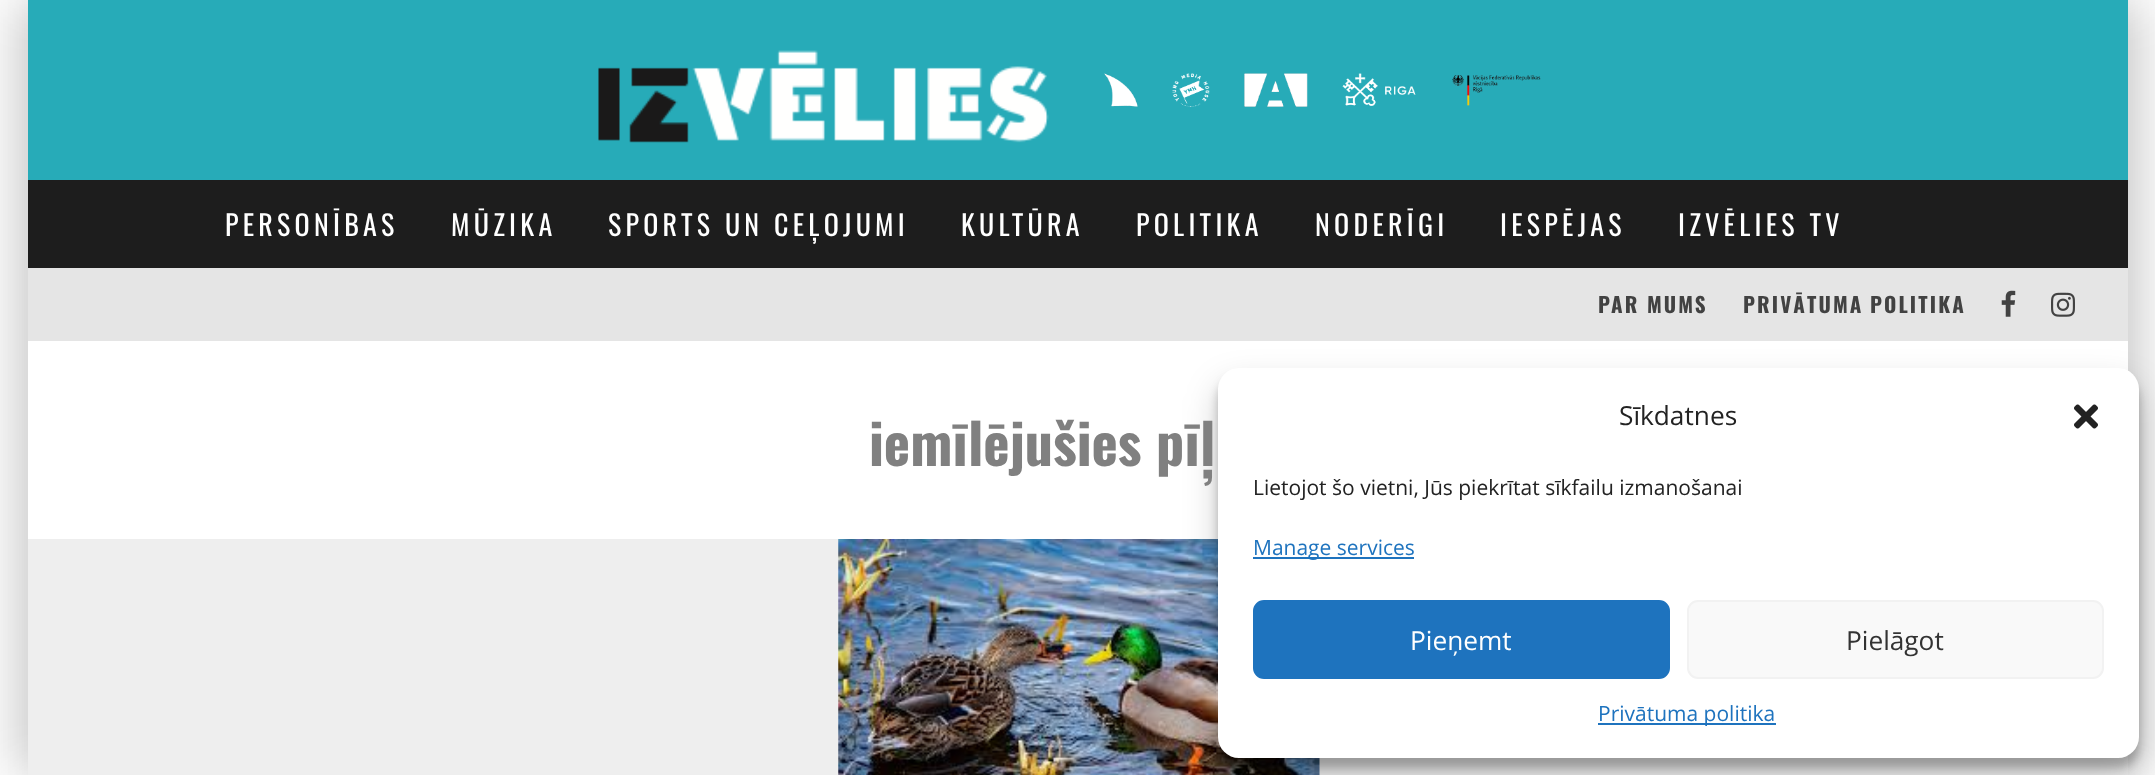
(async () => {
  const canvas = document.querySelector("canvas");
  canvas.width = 2155;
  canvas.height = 775;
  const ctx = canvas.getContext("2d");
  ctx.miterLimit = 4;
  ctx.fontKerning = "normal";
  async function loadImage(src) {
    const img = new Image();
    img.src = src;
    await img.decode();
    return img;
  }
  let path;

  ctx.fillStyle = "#ffffff";
  ctx.fillRect(0, 0, 2155, 775);
  ctx.save();
  path = new Path2D("M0 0H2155V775H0ZM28 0H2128V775H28Z");
  ctx.clip(path, "evenodd");
  ctx.fillStyle = "rgba(0, 0, 0, 0.15)";
  ctx.filter = "blur(26px)";
  ctx.beginPath();
  ctx.rect(11, 0, 2100, 775);
  ctx.fill();
  ctx.filter = "none";
  ctx.filter = "blur(26px)";
  ctx.beginPath();
  ctx.rect(46, 0, 2100, 775);
  ctx.fill();
  ctx.filter = "none";
  ctx.restore();
  ctx.fillStyle = "#27abb8";
  ctx.fillRect(28, 0, 2100, 180);
  ctx.drawImage(await loadImage("img/1.png"), 598, 50, 451, 93);
  ctx.drawImage(await loadImage("img/2.png"), 1104, 73, 34, 34);
  ctx.drawImage(await loadImage("img/3.png"), 1172, 73, 38, 34);
  ctx.drawImage(await loadImage("img/4.png"), 1244, 73, 64, 34);
  ctx.drawImage(await loadImage("img/5.png"), 1342, 73, 74, 33);
  ctx.drawImage(await loadImage("img/6.png"), 1452, 75, 89, 31);
  ctx.fillStyle = "#1d1d1d";
  ctx.fillRect(28, 180, 2100, 88);
  ctx.fillStyle = "#e5e5e5";
  ctx.fillRect(28, 268, 2100, 73);
  ctx.drawImage(await loadImage("img/7.png"), 2001, 290, 15, 27);
  ctx.drawImage(await loadImage("img/8.png"), 2051, 292, 24, 25);
  ctx.fillStyle = "#eeeeee";
  ctx.fillRect(28, 539, 2100, 236);
  ctx.drawImage(await loadImage("img/9.png"), 838, 539, 482, 236);
  ctx.fillStyle = "rgba(0, 0, 0, 0.23)";
  ctx.filter = "blur(5px)";
  ctx.beginPath();
  ctx.roundRect(1218, 378, 921, 390, 21);
  ctx.fill();
  ctx.filter = "none";
  ctx.fillStyle = "rgba(0, 0, 0, 0.19)";
  ctx.filter = "blur(17.5px)";
  ctx.beginPath();
  ctx.roundRect(1218, 385, 921, 390, 21);
  ctx.fill();
  ctx.filter = "none";
  ctx.fillStyle = "#ffffff";
  ctx.beginPath();
  ctx.roundRect(1218, 368, 921, 390, 21);
  ctx.fill();
  ctx.drawImage(await loadImage("img/10.png"), 2074, 404, 24, 25);
  ctx.fillStyle = "#1e73be";
  ctx.fillRect(1253, 557, 161, 2);
  ctx.beginPath();
  ctx.roundRect(1254, 601, 415, 77, 10);
  ctx.fill();
  ctx.strokeStyle = "#1e73be";
  ctx.lineWidth = 2;
  ctx.stroke();
  ctx.fillStyle = "#f9f9f9";
  ctx.beginPath();
  ctx.roundRect(1688, 601, 415, 77, 10);
  ctx.fill();
  ctx.strokeStyle = "#f2f2f2";
  ctx.stroke();
  ctx.fillStyle = "#1e73be";
  ctx.fillRect(1598, 723, 178, 2);
  ctx.letterSpacing = "4.25px";
  ctx.font = "28px Oswald";
  ctx.fillStyle = "#ffffff";
  for (const [text, x, y] of [
    ["PERSONĪBAS", 225, 236],
    ["MŪZIKA", 451, 236],
    ["SPORTS UN CEĻOJUMI", 608, 236],
    ["KULTŪRA", 961, 236],
    ["POLITIKA", 1136, 236],
    ["NODERĪGI", 1315, 236],
    ["IESPĒJAS", 1500, 236],
    ["IZVĒLIES TV", 1678, 236],
  ]) {
    ctx.fillText(text, x, y);
  }
  ctx.letterSpacing = "2.1px";
  ctx.font = "bold 21px Oswald";
  ctx.fillStyle = "#424242";
  ctx.fillText("PAR MUMS", 1598, 313);
  ctx.wordSpacing = "-1px";
  ctx.fillText("PRIVĀTUMA POLITIKA", 1743, 313);
  ctx.letterSpacing = "0px";
  ctx.wordSpacing = "0px";
  ctx.font = "bold 56px Oswald";
  ctx.fillStyle = "#808080";
  ctx.fillText("iemīlējušies pīļ", 869, 466);
  ctx.font = "26.25px Open Sans";
  ctx.fillStyle = "#222222";
  ctx.fillText("Sīkdatnes", 1619, 425);
  ctx.font = "21px Open Sans";
  ctx.fillText("Lietojot šo vietni, Jūs piekrītat sīkfailu izmanošanai", 1253, 495);
  ctx.fillStyle = "#1e73be";
  ctx.fillText("Manage services", 1253, 555);
  ctx.font = "26.25px Open Sans";
  ctx.fillStyle = "#ffffff";
  ctx.fillText("Pieņemt", 1410, 650);
  ctx.fillStyle = "#333333";
  ctx.fillText("Pielāgot", 1846, 650);
  ctx.font = "21px Open Sans";
  ctx.fillStyle = "#1e73be";
  ctx.fillText("Privātuma politika", 1598, 721);
})();
